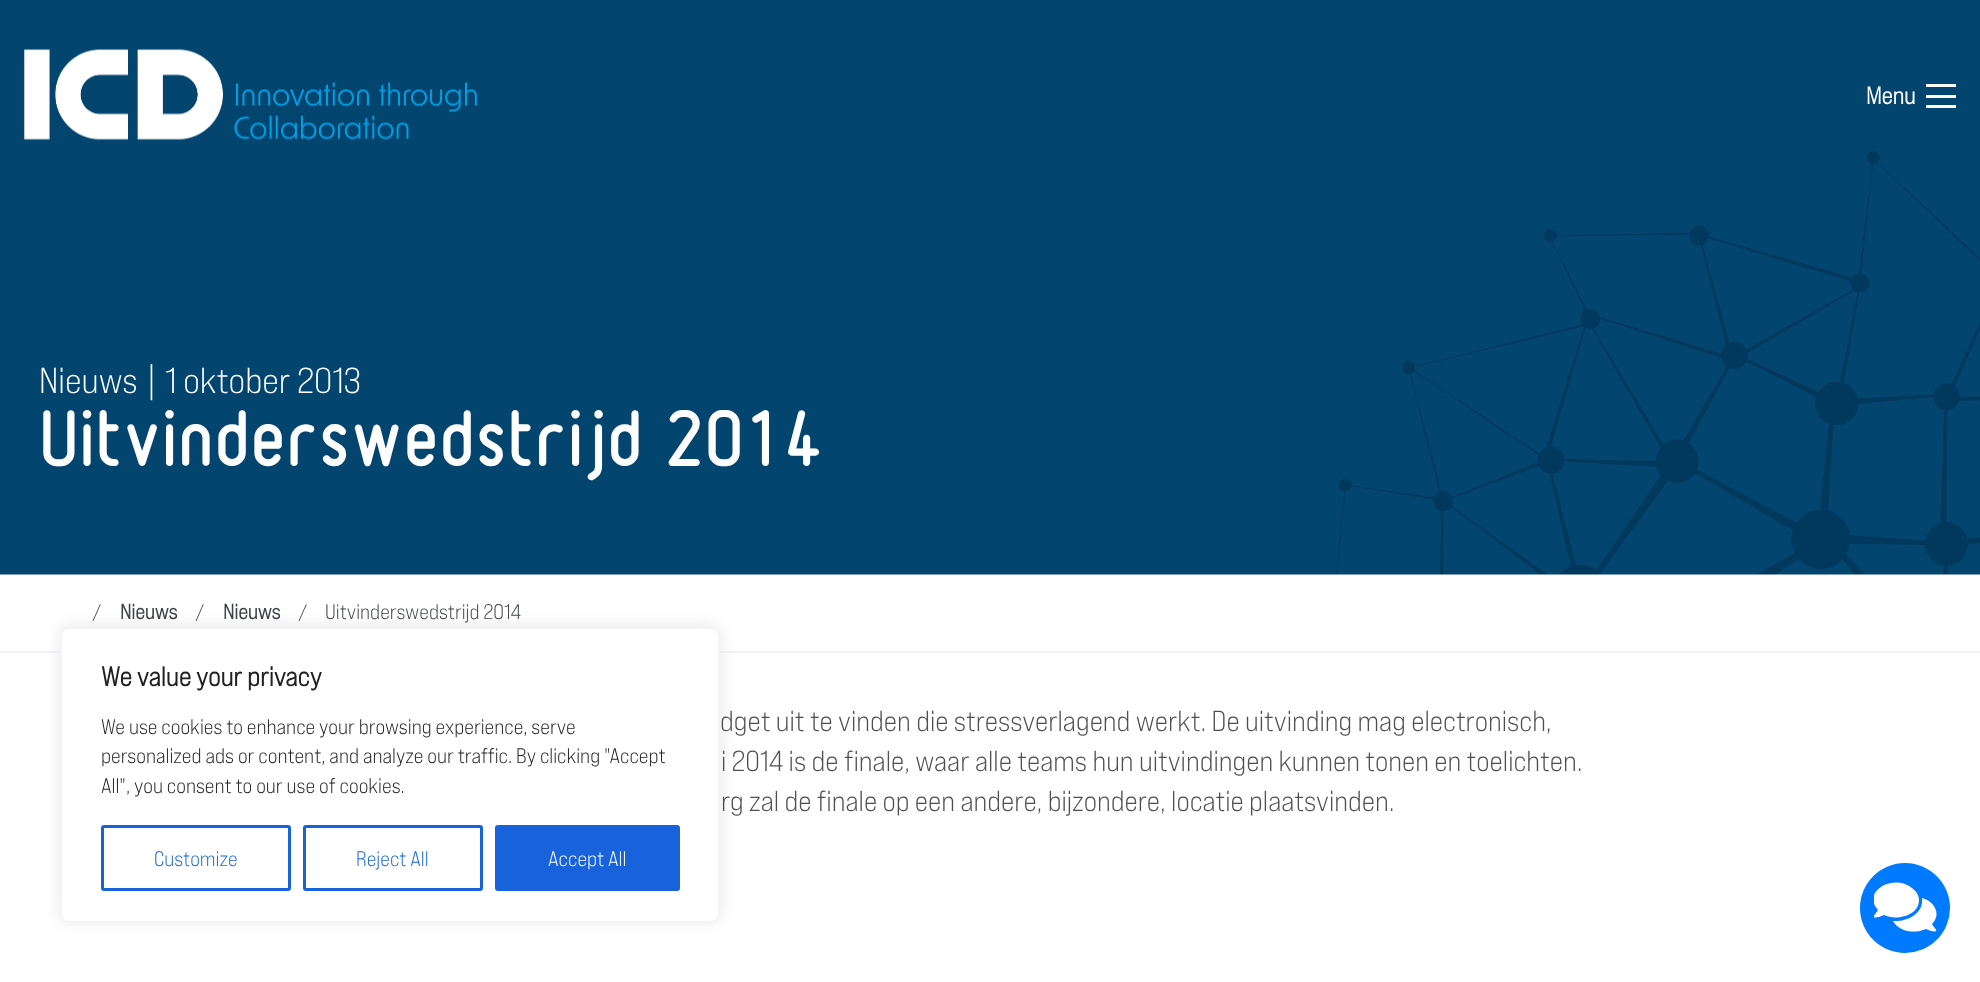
(async () => {
  const canvas = document.querySelector("canvas");
  canvas.width = 1980;
  canvas.height = 982;
  const ctx = canvas.getContext("2d");
  ctx.miterLimit = 4;
  ctx.fontKerning = "normal";
  async function loadImage(src) {
    const img = new Image();
    img.src = src;
    await img.decode();
    return img;
  }
  let path;

  ctx.fillStyle = "#ffffff";
  ctx.fillRect(0, 0, 1980, 982);
  ctx.drawImage(await loadImage("img/2.png"), 0, 0, 1980, 575);
  ctx.drawImage(await loadImage("img/1.png"), 24, 49, 453, 91);
  for (const [x, y, w, h, color] of [
    [1926, 105, 30, 3, "#fefefe"],
    [1926, 95, 30, 3, "#fefefe"],
    [1926, 84, 30, 3, "#fefefe"],
    [0, 651, 1980, 2, "#f1f5f9"],
  ]) {
    ctx.fillStyle = color;
    ctx.fillRect(x, y, w, h);
  }
  ctx.fillStyle = "rgba(172, 171, 171, 0.3)";
  ctx.filter = "blur(7.5px)";
  ctx.beginPath();
  ctx.roundRect(60, 626, 660, 295, 9);
  ctx.fill();
  ctx.filter = "none";
  ctx.fillStyle = "#ffffff";
  ctx.beginPath();
  ctx.roundRect(61, 628, 658, 294, 8);
  ctx.fill();
  ctx.strokeStyle = "#f4f4f4";
  ctx.lineWidth = 2;
  ctx.stroke();
  ctx.beginPath();
  ctx.roundRect(102.5, 826.5, 187, 63, 1.5);
  ctx.strokeStyle = "#1863dc";
  ctx.lineWidth = 3;
  ctx.stroke();
  ctx.beginPath();
  ctx.roundRect(304.5, 826.5, 177, 63, 1.5);
  ctx.stroke();
  ctx.fillStyle = "#1863dc";
  ctx.beginPath();
  ctx.roundRect(496.5, 826.5, 182, 63, 1.5);
  ctx.fill();
  ctx.stroke();
  ctx.fillStyle = "#007bff";
  ctx.beginPath();
  ctx.arc(1905, 908, 45, 0, Math.PI * 2);
  ctx.fill();
  ctx.save();
  ctx.beginPath();
  ctx.rect(1874, 879, 63, 57);
  ctx.clip();
  ctx.fillStyle = "#ffffff";
  path = new Path2D("M1919 900C1919 895 1916 891 1912 888C1893 873 1861 892 1878 910C1876 914 1869 919 1879 917L1884 915C1896 921 1919 916 1919 900ZM1932 924C1942 914 1934 901 1922 898C1924 914 1906 922 1893 921C1899 932 1915 934 1926 929L1931 931C1941 933 1934 928 1932 924Z");
  ctx.fill(path);
  ctx.restore();
  ctx.font = "bold 24px Bebas Neue";
  ctx.fillStyle = "#fefefe";
  ctx.fillText("Menu", 1866, 104);
  ctx.font = "36px Bebas Neue";
  ctx.fillText("Nieuws | 1 oktober 2013", 39, 393);
  ctx.font = "500 72px '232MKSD'";
  ctx.fillText("Uitvinderswedstrijd 2014", 39, 466);
  ctx.font = "21px Bebas Neue";
  ctx.fillStyle = "#3f434a";
  ctx.fillText("/", 92, 619);
  ctx.font = "bold 21px Bebas Neue";
  ctx.fillText("Nieuws", 120, 619);
  ctx.font = "21px Bebas Neue";
  ctx.fillText("/", 195, 619);
  ctx.font = "bold 21px Bebas Neue";
  ctx.fillText("Nieuws", 223, 619);
  ctx.font = "21px Bebas Neue";
  ctx.fillText("/", 298, 619);
  ctx.fillText("Uitvinderswedstrijd 2014", 325, 619);
  ctx.font = "28.8px Bebas Neue";
  ctx.fillStyle = "#534e4e";
  for (const [text, x, y] of [
    ["dget uit te vinden die stressverlagend werkt. De uitvinding mag electronisch,", 720, 731],
    ["i 2014 is de finale, waar alle teams hun uitvindingen kunnen tonen en toelichten.", 721, 771],
    ["rg zal de finale op een andere, bijzondere, locatie plaatsvinden.", 721, 811],
  ]) {
    ctx.fillText(text, x, y);
  }
  ctx.font = "bold 27px Bebas Neue";
  ctx.fillStyle = "#212121";
  ctx.fillText("We value your privacy", 101, 686);
  ctx.font = "21px Bebas Neue";
  for (const [text, x, y] of [
    ["We use cookies to enhance your browsing experience, serve", 101, 734],
    ["personalized ads or content, and analyze our traffic. By clicking \"Accept", 101, 763],
    ["All\", you consent to our use of cookies.", 101, 793],
  ]) {
    ctx.fillText(text, x, y);
  }
  ctx.fillStyle = "#1863dc";
  ctx.fillText("Customize", 154, 866);
  ctx.fillText("Reject All", 356, 866);
  ctx.fillStyle = "#fefefe";
  ctx.fillText("Accept All", 548, 866);
})();
